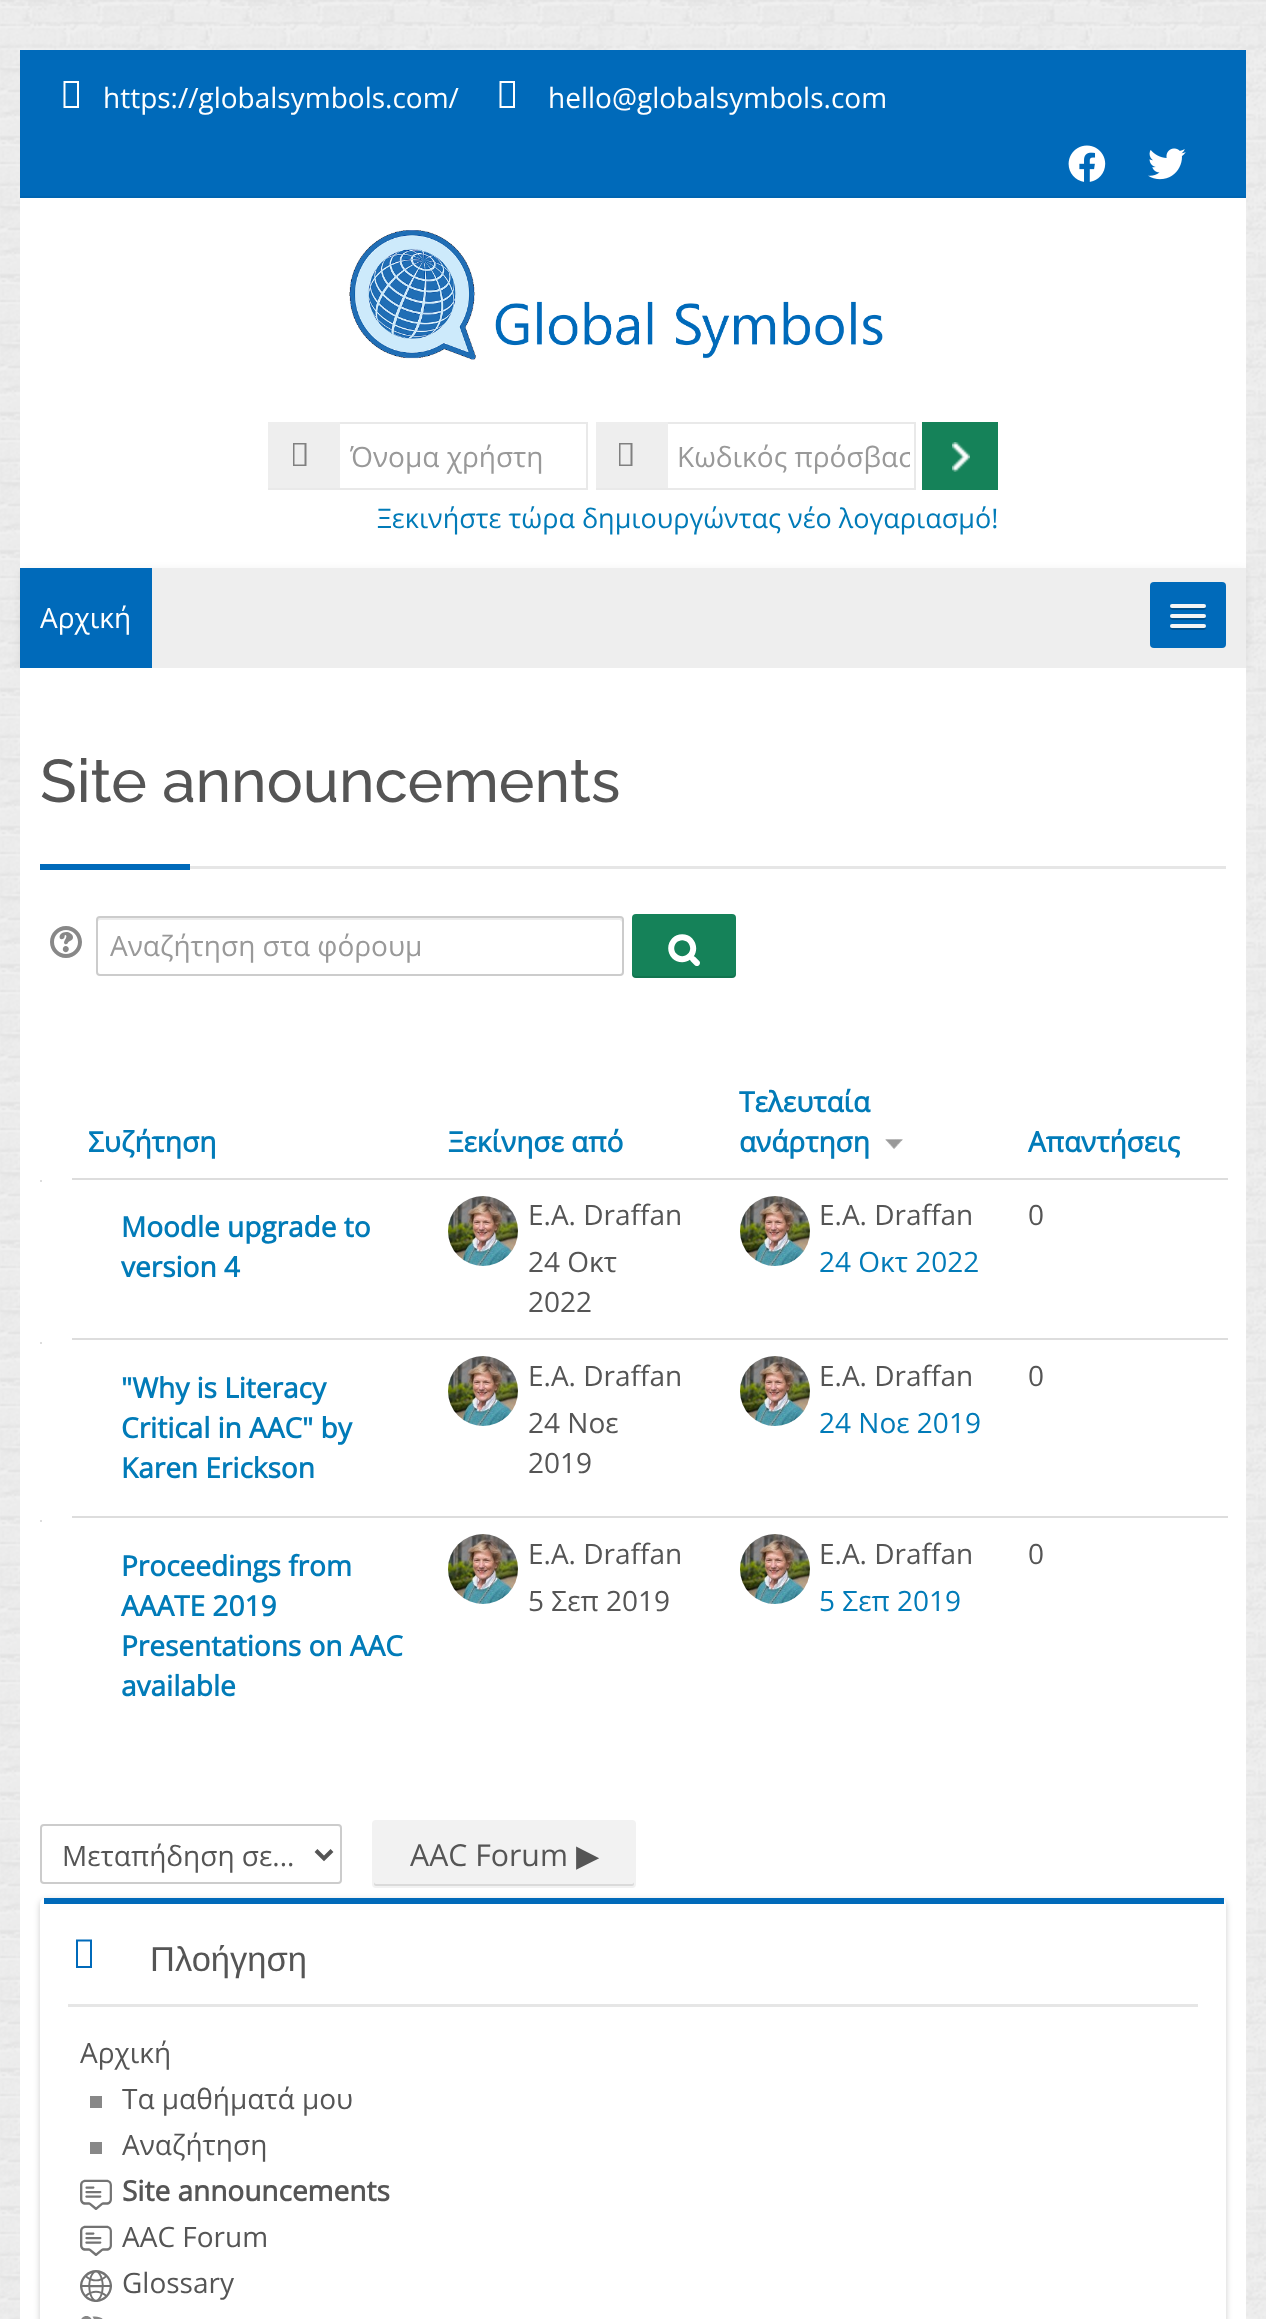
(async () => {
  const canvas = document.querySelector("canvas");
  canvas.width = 1266;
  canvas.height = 2319;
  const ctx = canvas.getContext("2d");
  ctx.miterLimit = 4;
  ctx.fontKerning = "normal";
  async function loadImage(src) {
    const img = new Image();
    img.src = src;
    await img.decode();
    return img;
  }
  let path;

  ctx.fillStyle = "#ffffff";
  ctx.fillRect(0, 0, 1266, 2319);
  ctx.drawImage(await loadImage("img/1.png"), 0, 0, 1266, 2319);
  ctx.fillStyle = "#006aba";
  ctx.fillRect(20, 50, 1226, 146);
  ctx.fillStyle = "#0065b1";
  ctx.fillRect(20, 196, 1226, 2);
  ctx.fillStyle = "#ffffff";
  path = new Path2D("M63.5 108V81H79V108ZM65.5 106H77V83H65.5Z");
  ctx.fill(path);
  path = new Path2D("M499.5 108V81H515V108ZM501.5 106H513V83H501.5Z");
  ctx.fill(path);
  ctx.drawImage(await loadImage("img/2.png"), 1068, 145, 38, 37);
  ctx.drawImage(await loadImage("img/3.png"), 1148, 148, 38, 32);
  ctx.fillRect(20, 198, 1226, 370);
  ctx.drawImage(await loadImage("img/4.png"), 349, 230, 534, 130);
  ctx.strokeStyle = "#e9e9e9";
  ctx.lineWidth = 2;
  ctx.strokeRect(269, 423, 318, 66);
  ctx.fillStyle = "#eeeeee";
  ctx.fillRect(268, 422, 72, 66);
  ctx.fillStyle = "#808080";
  path = new Path2D("M293 466V443H306.5V466ZM294.5 464.5H304.5V444.5H294.5Z");
  ctx.fill(path);
  ctx.strokeRect(597, 423, 318, 66);
  ctx.fillStyle = "#eeeeee";
  ctx.fillRect(596, 422, 72, 66);
  ctx.fillStyle = "#808080";
  path = new Path2D("M619 466V443H632.5V466ZM620.5 464.5H630.5V444.5H620.5Z");
  ctx.fill(path);
  ctx.fillStyle = "#158259";
  ctx.fillRect(922, 422, 76, 68);
  ctx.drawImage(await loadImage("img/5.png"), 952, 442, 18, 30);
  ctx.fillStyle = "rgba(0, 0, 0, 0.07)";
  ctx.filter = "blur(4px)";
  ctx.beginPath();
  ctx.rect(20, 570, 1226, 100);
  ctx.fill();
  ctx.filter = "none";
  ctx.fillStyle = "#eeeeee";
  ctx.fillRect(152, 568, 1094, 100);
  ctx.fillStyle = "#006aba";
  ctx.fillRect(20, 568, 132, 100);
  ctx.beginPath();
  ctx.roundRect(1150, 582, 76, 66, 4);
  ctx.fill();
  ctx.fillStyle = "#00508c";
  path = new Path2D("M1170.5 607C1168 611 1177 610 1177.5 610H1198.5C1199 610 1208 611 1205.5 607C1205.5 607.5 1204.5 608 1204 608H1172C1171.5 608 1170.5 607.5 1170.5 607Z");
  ctx.fill(path);
  ctx.fillStyle = "#f5f5f5";
  ctx.beginPath();
  ctx.roundRect(1170, 604, 36, 4, 2);
  ctx.fill();
  ctx.fillStyle = "#00508c";
  path = new Path2D("M1170.5 617C1168 621 1177 620 1177.5 620H1198.5C1199 620 1208 621 1205.5 617C1205.5 617.5 1204.5 618 1204 618H1172C1171.5 618 1170.5 617.5 1170.5 617Z");
  ctx.fill(path);
  ctx.fillStyle = "#f5f5f5";
  ctx.beginPath();
  ctx.roundRect(1170, 614, 36, 4, 2);
  ctx.fill();
  ctx.fillStyle = "#00508c";
  path = new Path2D("M1170.5 627C1168 631 1177 630 1177.5 630H1198.5C1199 630 1208 631 1205.5 627C1205.5 627.5 1204.5 628 1204 628H1172C1171.5 628 1170.5 627.5 1170.5 627Z");
  ctx.fill(path);
  ctx.fillStyle = "#f5f5f5";
  ctx.beginPath();
  ctx.roundRect(1170, 624, 36, 4, 2);
  ctx.fill();
  for (const [x, y, w, h, color] of [
    [20, 668, 1226, 1651, "#ffffff"],
    [190, 866, 1036, 3, "#e6e6e6"],
    [40, 864, 150, 6, "#006aba"],
  ]) {
    ctx.fillStyle = color;
    ctx.fillRect(x, y, w, h);
  }
  ctx.drawImage(await loadImage("img/6.png"), 50, 926, 32, 32);
  ctx.fillStyle = "#ececec";
  path = new Path2D("M100 920H620L622 922C622 920 622 918 620 918H99L98 919V922C98 921 99 920 100 920Z");
  ctx.fill(path);
  ctx.beginPath();
  ctx.roundRect(97, 917, 526, 58, 3);
  ctx.strokeStyle = "#cccccc";
  ctx.stroke();
  ctx.fillStyle = "#158259";
  ctx.beginPath();
  ctx.roundRect(632, 914, 104, 64, 4);
  ctx.fill();
  ctx.fillStyle = "rgba(0, 0, 0, 0.1)";
  path = new Path2D("M632 972V974C632 976 634 978 636 978H732C734 978 736 976 736 974V972C736 974 734 976 732 976H636C634 976 632 974 632 972Z");
  ctx.fill(path);
  ctx.drawImage(await loadImage("img/7.png"), 668, 934, 32, 32);
  ctx.drawImage(await loadImage("img/8.png"), 885, 1139, 18, 10);
  ctx.fillStyle = "#dddddd";
  ctx.fillRect(72, 1178, 1156, 2);
  ctx.fillRect(40, 1180, 2, 2);
  ctx.drawImage(await loadImage("img/9.png"), 448, 1196, 70, 70);
  ctx.drawImage(await loadImage("img/10.png"), 740, 1196, 70, 70);
  ctx.fillRect(72, 1338, 1156, 2);
  ctx.fillRect(40, 1342, 2, 2);
  ctx.drawImage(await loadImage("img/9.png"), 448, 1356, 70, 70);
  ctx.drawImage(await loadImage("img/10.png"), 740, 1356, 70, 70);
  ctx.fillRect(72, 1516, 1156, 2);
  ctx.fillRect(40, 1520, 2, 2);
  ctx.drawImage(await loadImage("img/9.png"), 448, 1534, 70, 70);
  ctx.drawImage(await loadImage("img/10.png"), 740, 1534, 70, 70);
  ctx.beginPath();
  ctx.roundRect(41, 1825, 300, 58, 3);
  ctx.stroke();
  path = new Path2D("M316 1850.5L324 1858.5L332 1850.5");
  ctx.strokeStyle = "#555555";
  ctx.lineWidth = 4;
  ctx.stroke(path);
  ctx.fillStyle = "#f2f2f2";
  ctx.beginPath();
  ctx.roundRect(372, 1820, 264, 68, 4);
  ctx.fill();
  ctx.fillStyle = "#dadada";
  path = new Path2D("M374 1882V1884C374 1885 375 1886 376 1886H632C633 1886 634 1885 634 1884V1882C634 1883 633 1884 632 1884H376C375 1884 374 1883 374 1882Z");
  ctx.fill(path);
  ctx.save();
  path = new Path2D("M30 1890H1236V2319H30ZM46 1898H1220C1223.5 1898 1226 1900.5 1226 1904V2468C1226 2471.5 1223.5 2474 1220 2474H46C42.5 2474 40 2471.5 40 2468V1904C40 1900.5 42.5 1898 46 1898Z");
  ctx.clip(path, "evenodd");
  ctx.fillStyle = "rgba(0, 0, 0, 0.2)";
  ctx.filter = "blur(3px)";
  ctx.beginPath();
  ctx.roundRect(40, 1900, 1186, 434, 6);
  ctx.fill();
  ctx.filter = "none";
  ctx.restore();
  ctx.fillStyle = "#006aba";
  ctx.fillRect(44, 1898, 1180, 6);
  ctx.fillStyle = "#e6e6e6";
  ctx.fillRect(68, 2004, 1130, 3);
  ctx.fillStyle = "#006aba";
  path = new Path2D("M76 1968V1939.5H92V1968ZM78 1966H90V1941.5H78Z");
  ctx.fill(path);
  ctx.fillStyle = "#888888";
  ctx.fillRect(90, 2096, 12, 12);
  ctx.fillRect(90, 2142, 12, 12);
  ctx.drawImage(await loadImage("img/11.png"), 80, 2179, 32, 31);
  ctx.drawImage(await loadImage("img/11.png"), 80, 2225, 32, 31);
  ctx.drawImage(await loadImage("img/12.png"), 80, 2270, 32, 32);
  ctx.drawImage(await loadImage("img/13.png"), 81, 2316, 22, 3);
  ctx.font = "28px Open Sans";
  ctx.fillStyle = "#ffffff";
  ctx.fillText("https://globalsymbols.com/", 103, 108);
  ctx.fillText("hello@globalsymbols.com", 548, 108);
  ctx.fillStyle = "#999999";
  ctx.fillText("Όνομα χρήστη", 350, 467);
  ctx.save();
  ctx.beginPath();
  ctx.rect(678, 438, 232, 38);
  ctx.clip();
  ctx.fillText("Κωδικός πρόσβασ", 677, 467);
  ctx.restore();
  ctx.font = "27px Open Sans";
  ctx.fillStyle = "#017bb8";
  ctx.fillText("Ξεκινήστε τώρα δημιουργώντας νέο λογαριασμό!", 377, 528);
  ctx.font = "28px Open Sans";
  ctx.fillStyle = "#ffffff";
  ctx.fillText("Αρχική", 40, 628);
  ctx.font = "100 60.25px Raleway";
  ctx.fillStyle = "#555555";
  ctx.fillText("Site announcements", 40, 802);
  ctx.font = "28px Open Sans";
  ctx.fillStyle = "#999999";
  ctx.fillText("Αναζήτηση στα φόρουμ", 110, 956);
  ctx.font = "bold 28px Open Sans";
  ctx.fillStyle = "#017bb8";
  for (const [text, x, y] of [
    ["Συζήτηση", 88, 1152],
    ["Ξεκίνησε από", 448, 1152],
    ["Τελευταία", 739, 1112],
    ["ανάρτηση", 739, 1152],
    ["Απαντήσεις", 1028, 1152],
    ["Moodle upgrade to", 121, 1237],
    ["version 4", 121, 1277],
  ]) {
    ctx.fillText(text, x, y);
  }
  ctx.font = "28px Open Sans";
  ctx.fillStyle = "#555555";
  for (const [text, x, y] of [
    ["E.A. Draffan", 528, 1225],
    ["24 Οκτ", 528, 1272],
    ["2022", 528, 1312],
    ["E.A. Draffan", 819, 1225],
  ]) {
    ctx.fillText(text, x, y);
  }
  ctx.fillStyle = "#017bb8";
  ctx.fillText("24 Οκτ 2022", 819, 1272);
  ctx.fillStyle = "#555555";
  ctx.fillText("0", 1028, 1225);
  ctx.font = "bold 28px Open Sans";
  ctx.fillStyle = "#017bb8";
  for (const [text, x, y] of [
    ["\"Why is Literacy", 121, 1398],
    ["Critical in AAC\" by", 121, 1438],
    ["Karen Erickson", 121, 1478],
  ]) {
    ctx.fillText(text, x, y);
  }
  ctx.font = "28px Open Sans";
  ctx.fillStyle = "#555555";
  for (const [text, x, y] of [
    ["E.A. Draffan", 528, 1386],
    ["24 Νοε", 528, 1433],
    ["2019", 528, 1473],
    ["E.A. Draffan", 819, 1386],
  ]) {
    ctx.fillText(text, x, y);
  }
  ctx.fillStyle = "#017bb8";
  ctx.fillText("24 Νοε 2019", 819, 1433);
  ctx.fillStyle = "#555555";
  ctx.fillText("0", 1028, 1386);
  ctx.font = "bold 28px Open Sans";
  ctx.fillStyle = "#017bb8";
  for (const [text, x, y] of [
    ["Proceedings from", 121, 1576],
    ["AAATE 2019", 121, 1616],
    ["Presentations on AAC", 121, 1656],
    ["available", 121, 1696],
  ]) {
    ctx.fillText(text, x, y);
  }
  ctx.font = "28px Open Sans";
  ctx.fillStyle = "#555555";
  for (const [text, x, y] of [
    ["E.A. Draffan", 528, 1564],
    ["5 Σεπ 2019", 528, 1611],
    ["E.A. Draffan", 819, 1564],
  ]) {
    ctx.fillText(text, x, y);
  }
  ctx.fillStyle = "#017bb8";
  ctx.fillText("5 Σεπ 2019", 819, 1611);
  ctx.fillStyle = "#555555";
  ctx.fillText("0", 1028, 1564);
  ctx.fillText("Μεταπήδηση σε...", 62, 1866);
  ctx.font = "30.25px Open Sans";
  ctx.fillText("AAC Forum", 410, 1866);
  ctx.font = "30.25px DejaVu Sans";
  ctx.fillText("▶︎", 576, 1866);
  ctx.font = "34.5px Liberation Sans";
  ctx.fillText("Πλοήγηση", 150, 1971);
  ctx.font = "28px Open Sans";
  for (const [text, x, y] of [
    ["Αρχική", 80, 2063],
    ["Τα μαθήματά μου", 122, 2109],
    ["Αναζήτηση", 122, 2155],
  ]) {
    ctx.fillText(text, x, y);
  }
  ctx.font = "bold 28px Open Sans";
  ctx.fillText("Site announcements", 122, 2201);
  ctx.font = "28px Open Sans";
  ctx.fillText("AAC Forum", 122, 2247);
  ctx.fillText("Glossary", 122, 2293);
})();
